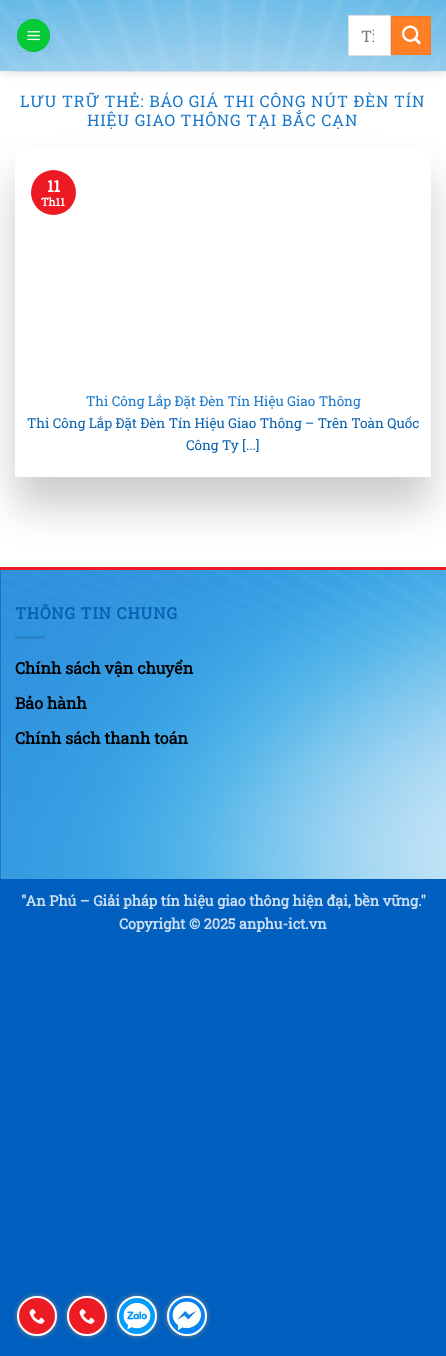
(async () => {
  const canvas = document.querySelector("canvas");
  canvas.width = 446;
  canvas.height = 1356;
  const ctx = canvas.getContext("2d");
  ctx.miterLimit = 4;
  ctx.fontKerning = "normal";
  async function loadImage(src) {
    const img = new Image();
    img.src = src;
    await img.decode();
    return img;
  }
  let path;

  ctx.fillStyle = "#005fbf";
  ctx.fillRect(0, 0, 446, 1356);
  ctx.fillStyle = "#ffffff";
  ctx.fillRect(0, 71, 446, 496);
  ctx.fillStyle = "rgba(0, 0, 0, 0.15)";
  ctx.filter = "blur(5px)";
  ctx.beginPath();
  ctx.rect(1, 1, 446, 71);
  ctx.fill();
  ctx.filter = "none";
  ctx.drawImage(await loadImage("img/1.png"), 0, 0, 446, 71);
  ctx.fillStyle = "#06c936";
  ctx.beginPath();
  ctx.arc(33.5, 35.5, 16.5, 0, Math.PI * 2);
  ctx.fill();
  ctx.strokeStyle = "rgba(0, 0, 0, 0.05)";
  ctx.strokeRect(17.5, 19.5, 32, 32);
  ctx.drawImage(await loadImage("img/2.png"), 27, 31, 13, 10);
  ctx.fillStyle = "#ffffff";
  ctx.beginPath();
  ctx.rect(348.5, 15.5, 42, 40);
  ctx.fill();
  ctx.strokeStyle = "#dddddd";
  ctx.stroke();
  ctx.fillStyle = "#ff7f27";
  ctx.beginPath();
  ctx.rect(391.5, 16.5, 39, 38);
  ctx.fill();
  ctx.strokeStyle = "#f27925";
  ctx.stroke();
  ctx.drawImage(await loadImage("img/3.png"), 402, 25, 19, 20);
  ctx.fillStyle = "#d4dde5";
  ctx.fillRect(15, 71, 416, 1);
  ctx.save();
  path = new Path2D("M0 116H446V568H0ZM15 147H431V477H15Z");
  ctx.clip(path, "evenodd");
  ctx.fillStyle = "rgba(0, 0, 0, 0.2)";
  ctx.filter = "blur(20px)";
  ctx.beginPath();
  ctx.rect(15, 177, 416, 330);
  ctx.fill();
  ctx.filter = "none";
  ctx.restore();
  ctx.fillStyle = "#ec1a23";
  ctx.beginPath();
  ctx.arc(53.5, 192.5, 22.5, 0, Math.PI * 2);
  ctx.fill();
  ctx.drawImage(await loadImage("img/4.png"), 0, 570, 446, 309);
  ctx.fillRect(0, 567, 446, 3);
  ctx.fillStyle = "rgba(0, 0, 0, 0.1)";
  ctx.fillRect(15, 636, 30, 3);
  ctx.fillStyle = "#888888";
  ctx.filter = "blur(2.5px)";
  ctx.beginPath();
  ctx.roundRect(17, 1296, 40, 40, 20);
  ctx.fill();
  ctx.filter = "none";
  ctx.fillStyle = "#ed1c24";
  ctx.beginPath();
  ctx.arc(37, 1316, 19, 0, Math.PI * 2);
  ctx.fill();
  ctx.strokeStyle = "#ffffff";
  ctx.lineWidth = 2;
  ctx.stroke();
  ctx.drawImage(await loadImage("img/5.png"), 29, 1309, 16, 15);
  ctx.fillStyle = "#888888";
  ctx.filter = "blur(2.5px)";
  ctx.beginPath();
  ctx.roundRect(67, 1296, 40, 40, 20);
  ctx.fill();
  ctx.filter = "none";
  ctx.fillStyle = "#ed1c24";
  ctx.beginPath();
  ctx.arc(87, 1316, 19, 0, Math.PI * 2);
  ctx.fill();
  ctx.stroke();
  ctx.drawImage(await loadImage("img/5.png"), 79, 1309, 16, 15);
  ctx.fillStyle = "#888888";
  ctx.filter = "blur(2.5px)";
  ctx.beginPath();
  ctx.roundRect(117, 1296, 40, 40, 20);
  ctx.fill();
  ctx.filter = "none";
  ctx.drawImage(await loadImage("img/6.png"), 119, 1298, 36, 36);
  ctx.beginPath();
  ctx.arc(137, 1316, 19, 0, Math.PI * 2);
  ctx.stroke();
  ctx.filter = "blur(2.5px)";
  ctx.beginPath();
  ctx.roundRect(167, 1296, 40, 40, 20);
  ctx.fill();
  ctx.filter = "none";
  ctx.drawImage(await loadImage("img/7.png"), 169, 1298, 36, 36);
  ctx.beginPath();
  ctx.arc(187, 1316, 19, 0, Math.PI * 2);
  ctx.stroke();
  ctx.save();
  ctx.beginPath();
  ctx.rect(361, 25, 13, 21);
  ctx.clip();
  ctx.font = "16px Roboto Slab";
  ctx.fillStyle = "#757575";
  ctx.fillText("Tì", 361, 42);
  ctx.restore();
  ctx.letterSpacing = "0.8px";
  ctx.font = "16px Roboto Slab";
  ctx.fillStyle = "#1a78cb";
  ctx.fillText("LƯU TRỮ THẺ: BÁO GIÁ THI CÔNG NÚT ĐÈN TÍN", 20, 107);
  ctx.fillText("HIỆU GIAO THÔNG TẠI BẮC CẠN", 87, 126);
  ctx.letterSpacing = "0px";
  ctx.font = "bold 16px Roboto Slab";
  ctx.fillStyle = "#ffffff";
  ctx.fillText("11", 47, 192);
  ctx.font = "bold 11px Roboto Slab";
  ctx.fillText("Th11", 41, 206);
  ctx.font = "13.6px Roboto Slab";
  ctx.fillStyle = "#1a78cb";
  ctx.fillText("Thi Công Lắp Đặt Đèn Tín Hiệu Giao Thông", 86, 406);
  ctx.fillStyle = "#0661b1";
  ctx.fillText("Thi Công Lắp Đặt Đèn Tín Hiệu Giao Thông – Trên Toàn Quốc", 27, 428);
  ctx.fillText("Công Ty [...]", 186, 450);
  ctx.letterSpacing = "0.8px";
  ctx.font = "bold 16px Roboto Slab";
  ctx.fillText("THÔNG TIN CHUNG", 15, 619);
  ctx.letterSpacing = "0px";
  ctx.fillStyle = "#000000";
  for (const [text, x, y] of [
    ["Chính sách vận chuyển", 15, 674],
    ["Bảo hành", 15, 709],
    ["Chính sách thanh toán", 15, 744],
  ]) {
    ctx.fillText(text, x, y);
  }
  ctx.font = "bold 14.4px Roboto Slab";
  ctx.fillStyle = "#ccdff2";
  ctx.fillText("\"An Phú – Giải pháp tín hiệu giao thông hiện đại, bền vững.\"", 21, 906);
  ctx.fillText("Copyright © 2025 anphu-ict.vn", 119, 929);
})();
